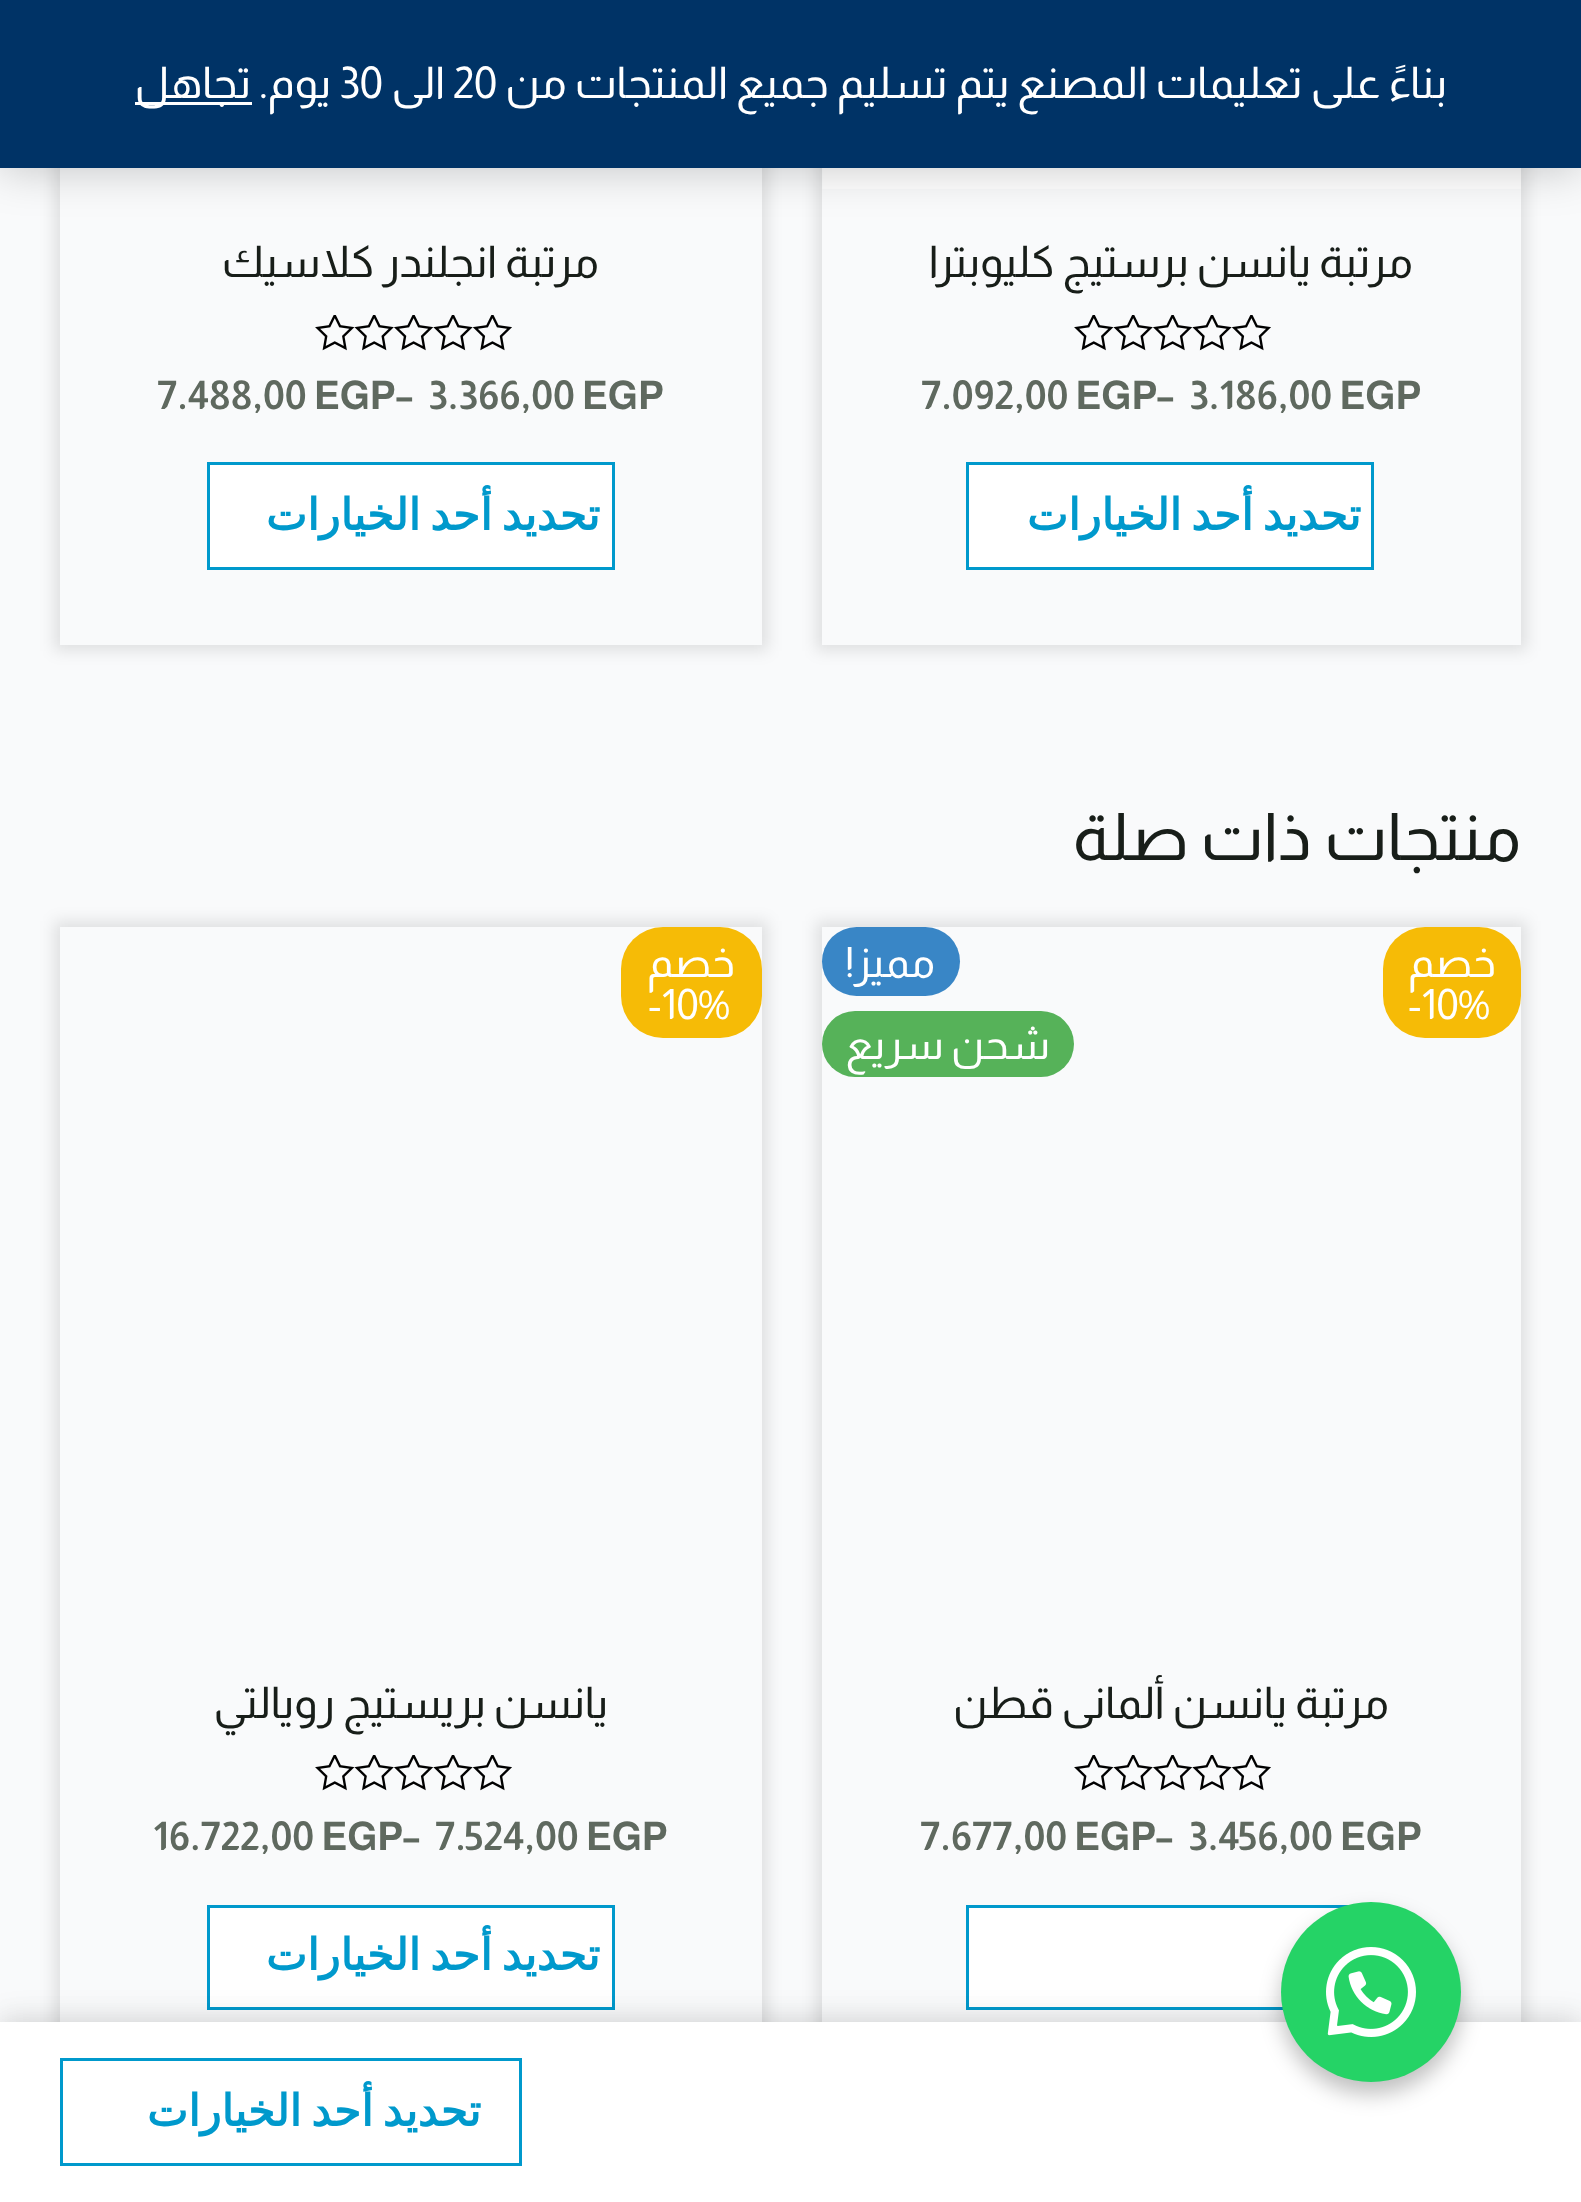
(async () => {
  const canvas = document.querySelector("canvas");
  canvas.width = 1581;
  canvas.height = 2202;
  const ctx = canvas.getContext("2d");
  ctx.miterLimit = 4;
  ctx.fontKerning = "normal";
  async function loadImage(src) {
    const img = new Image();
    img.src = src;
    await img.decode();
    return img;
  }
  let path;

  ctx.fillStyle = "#f9fafb";
  ctx.fillRect(0, 0, 1581, 2202);
  ctx.save();
  path = new Path2D("M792 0H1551V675H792ZM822-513H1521V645H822Z");
  ctx.clip(path, "evenodd");
  ctx.fillStyle = "rgba(0, 0, 0, 0.1)";
  ctx.filter = "blur(7.5px)";
  ctx.beginPath();
  ctx.rect(816, -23, 711, 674);
  ctx.fill();
  ctx.filter = "none";
  ctx.restore();
  ctx.drawImage(await loadImage("img/1.png"), 822, 168, 699, 21);
  ctx.fillStyle = "rgba(0, 0, 0, 0.2)";
  ctx.filter = "blur(22px)";
  ctx.beginPath();
  ctx.rect(0, 3, 1581, 168);
  ctx.fill();
  ctx.filter = "none";
  ctx.save();
  path = new Path2D("M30 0H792V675H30ZM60-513H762V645H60Z");
  ctx.clip(path, "evenodd");
  ctx.fillStyle = "rgba(0, 0, 0, 0.1)";
  ctx.filter = "blur(7.5px)";
  ctx.beginPath();
  ctx.rect(54, -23, 714, 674);
  ctx.fill();
  ctx.filter = "none";
  ctx.restore();
  ctx.fillStyle = "#003366";
  ctx.fillRect(0, 0, 1581, 168);
  ctx.fillStyle = "#ffffff";
  ctx.fillRect(135, 102, 117, 3);
  ctx.drawImage(await loadImage("img/2.png"), 1074, 315, 197, 36);
  ctx.beginPath();
  ctx.rect(967.5, 463.5, 405, 105);
  ctx.fill();
  ctx.strokeStyle = "#0099cc";
  ctx.lineWidth = 3;
  ctx.stroke();
  ctx.drawImage(await loadImage("img/2.png"), 315, 315, 197, 36);
  ctx.beginPath();
  ctx.rect(208.5, 463.5, 405, 105);
  ctx.fill();
  ctx.stroke();
  ctx.save();
  path = new Path2D("M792 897H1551V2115H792ZM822 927H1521V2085H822Z");
  ctx.clip(path, "evenodd");
  ctx.fillStyle = "rgba(0, 0, 0, 0.1)";
  ctx.filter = "blur(7.5px)";
  ctx.beginPath();
  ctx.rect(816, 921, 711, 1170);
  ctx.fill();
  ctx.filter = "none";
  ctx.restore();
  ctx.fillStyle = "#f6bb06";
  ctx.beginPath();
  ctx.roundRect(1383, 927, 138, 111, 42);
  ctx.fill();
  ctx.fillStyle = "#3986c6";
  ctx.beginPath();
  ctx.roundRect(822, 927, 138, 69, 34.5);
  ctx.fill();
  ctx.fillStyle = "#56b259";
  ctx.beginPath();
  ctx.roundRect(822, 1011, 252, 66, 33);
  ctx.fill();
  ctx.drawImage(await loadImage("img/2.png"), 1074, 1755, 197, 36);
  ctx.fillStyle = "#ffffff";
  ctx.fillRect(969, 1908, 370, 99);
  ctx.strokeRect(967.5, 1906.5, 405, 102);
  ctx.save();
  path = new Path2D("M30 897H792V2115H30ZM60 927H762V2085H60Z");
  ctx.clip(path, "evenodd");
  ctx.fillStyle = "rgba(0, 0, 0, 0.1)";
  ctx.filter = "blur(7.5px)";
  ctx.beginPath();
  ctx.rect(54, 921, 714, 1170);
  ctx.fill();
  ctx.filter = "none";
  ctx.restore();
  ctx.fillStyle = "#f6bb06";
  ctx.beginPath();
  ctx.roundRect(621, 927, 141, 111, 42);
  ctx.fill();
  ctx.drawImage(await loadImage("img/2.png"), 315, 1755, 197, 36);
  ctx.fillStyle = "#ffffff";
  ctx.beginPath();
  ctx.rect(208.5, 1906.5, 405, 102);
  ctx.fill();
  ctx.stroke();
  ctx.fillStyle = "rgba(0, 0, 0, 0.06)";
  ctx.filter = "blur(13.5px)";
  ctx.beginPath();
  ctx.rect(0, 2019, 1581, 180);
  ctx.fill();
  ctx.filter = "none";
  ctx.fillStyle = "rgba(0, 0, 0, 0.1)";
  ctx.filter = "blur(15px)";
  ctx.beginPath();
  ctx.rect(0, 2019, 1581, 180);
  ctx.fill();
  ctx.filter = "none";
  ctx.fillStyle = "#ffffff";
  ctx.fillRect(0, 2022, 1581, 180);
  ctx.fillStyle = "rgba(0, 0, 0, 0.25)";
  ctx.filter = "blur(10.5px)";
  ctx.beginPath();
  ctx.roundRect(1281, 1914, 180, 180, 90);
  ctx.fill();
  ctx.filter = "none";
  ctx.fillStyle = "#25d366";
  ctx.beginPath();
  ctx.arc(1371, 1992, 90, 0, Math.PI * 2);
  ctx.fill();
  ctx.drawImage(await loadImage("img/3.png"), 1326, 1947, 90, 90);
  ctx.strokeRect(61.5, 2059.5, 459, 105);
  ctx.direction = "rtl";
  ctx.font = "43.75px Almarai";
  ctx.fillStyle = "#ffffff";
  ctx.fillText("بناءً على تعليمات المصنع يتم تسليم جميع المنتجات من", 1447, 98);
  ctx.direction = "ltr";
  ctx.fillText("20", 453, 98);
  ctx.direction = "rtl";
  ctx.fillText("الى", 445, 98);
  ctx.direction = "ltr";
  ctx.fillText("30", 339, 98);
  ctx.direction = "rtl";
  ctx.fillText("يوم.", 331, 98);
  ctx.fillText("تجاهل", 251, 98);
  ctx.fillStyle = "#181e19";
  ctx.fillText("مرتبة يانسن برستيج كليوبترا", 1413, 277);
  ctx.direction = "ltr";
  ctx.font = "bold 39.5px Almarai";
  ctx.fillStyle = "#5f695f";
  for (const [text, x, y] of [
    ["3.186,00 EGP", 1189, 409],
    ["–", 1156, 409],
    ["7.092,00 EGP", 921, 409],
  ]) {
    ctx.fillText(text, x, y);
  }
  ctx.letterSpacing = "1.5px";
  ctx.wordSpacing = "-6px";
  ctx.direction = "rtl";
  ctx.font = "bold 43.75px DejaVu Sans";
  ctx.fillStyle = "#0099cc";
  ctx.fillText("تحديد أحد الخيارات", 1361, 530);
  ctx.letterSpacing = "0px";
  ctx.wordSpacing = "0px";
  ctx.font = "43.75px Almarai";
  ctx.fillStyle = "#181e19";
  ctx.fillText("مرتبة انجلندر كلاسيك", 599, 277);
  ctx.direction = "ltr";
  ctx.font = "bold 39.5px Almarai";
  ctx.fillStyle = "#5f695f";
  for (const [text, x, y] of [
    ["3.366,00 EGP", 428, 409],
    ["–", 395, 409],
    ["7.488,00 EGP", 157, 409],
  ]) {
    ctx.fillText(text, x, y);
  }
  ctx.letterSpacing = "1.5px";
  ctx.wordSpacing = "-6px";
  ctx.direction = "rtl";
  ctx.font = "bold 43.75px DejaVu Sans";
  ctx.fillStyle = "#0099cc";
  ctx.fillText("تحديد أحد الخيارات", 600, 530);
  ctx.letterSpacing = "0px";
  ctx.wordSpacing = "0px";
  ctx.font = "65.75px Almarai";
  ctx.fillStyle = "#181e19";
  ctx.fillText("منتجات ذات صلة", 1521, 860);
  ctx.font = "42px Almarai";
  ctx.fillStyle = "#ffffff";
  ctx.fillText("خصم", 1496, 977);
  ctx.direction = "ltr";
  ctx.fillText("-10%", 1408, 1019);
  ctx.direction = "rtl";
  ctx.fillText("مميز!", 935, 977);
  ctx.fillText("شحن سريع", 1050, 1059);
  ctx.font = "43.75px Almarai";
  ctx.fillStyle = "#181e19";
  ctx.fillText("مرتبة يانسن ألمانى قطن", 1389, 1718);
  ctx.direction = "ltr";
  ctx.font = "bold 39.5px Almarai";
  ctx.fillStyle = "#5f695f";
  for (const [text, x, y] of [
    ["3.456,00 EGP", 1188, 1850],
    ["–", 1155, 1850],
    ["7.677,00 EGP", 920, 1850],
  ]) {
    ctx.fillText(text, x, y);
  }
  ctx.direction = "rtl";
  ctx.font = "42px Almarai";
  ctx.fillStyle = "#ffffff";
  ctx.fillText("خصم", 735, 977);
  ctx.direction = "ltr";
  ctx.fillText("-10%", 648, 1019);
  ctx.direction = "rtl";
  ctx.font = "43.75px Almarai";
  ctx.fillStyle = "#181e19";
  ctx.fillText("يانسن بريستيج رويالتي", 608, 1718);
  ctx.direction = "ltr";
  ctx.font = "bold 39.5px Almarai";
  ctx.fillStyle = "#5f695f";
  for (const [text, x, y] of [
    ["7.524,00 EGP", 435, 1850],
    ["–", 402, 1850],
    ["16.722,00 EGP", 153, 1850],
  ]) {
    ctx.fillText(text, x, y);
  }
  ctx.letterSpacing = "1.5px";
  ctx.wordSpacing = "-6px";
  ctx.direction = "rtl";
  ctx.font = "bold 43.75px DejaVu Sans";
  ctx.fillStyle = "#0099cc";
  ctx.fillText("تحديد أحد الخيارات", 600, 1970);
  ctx.fillText("تحديد أحد الخيارات", 481, 2126);
})();
